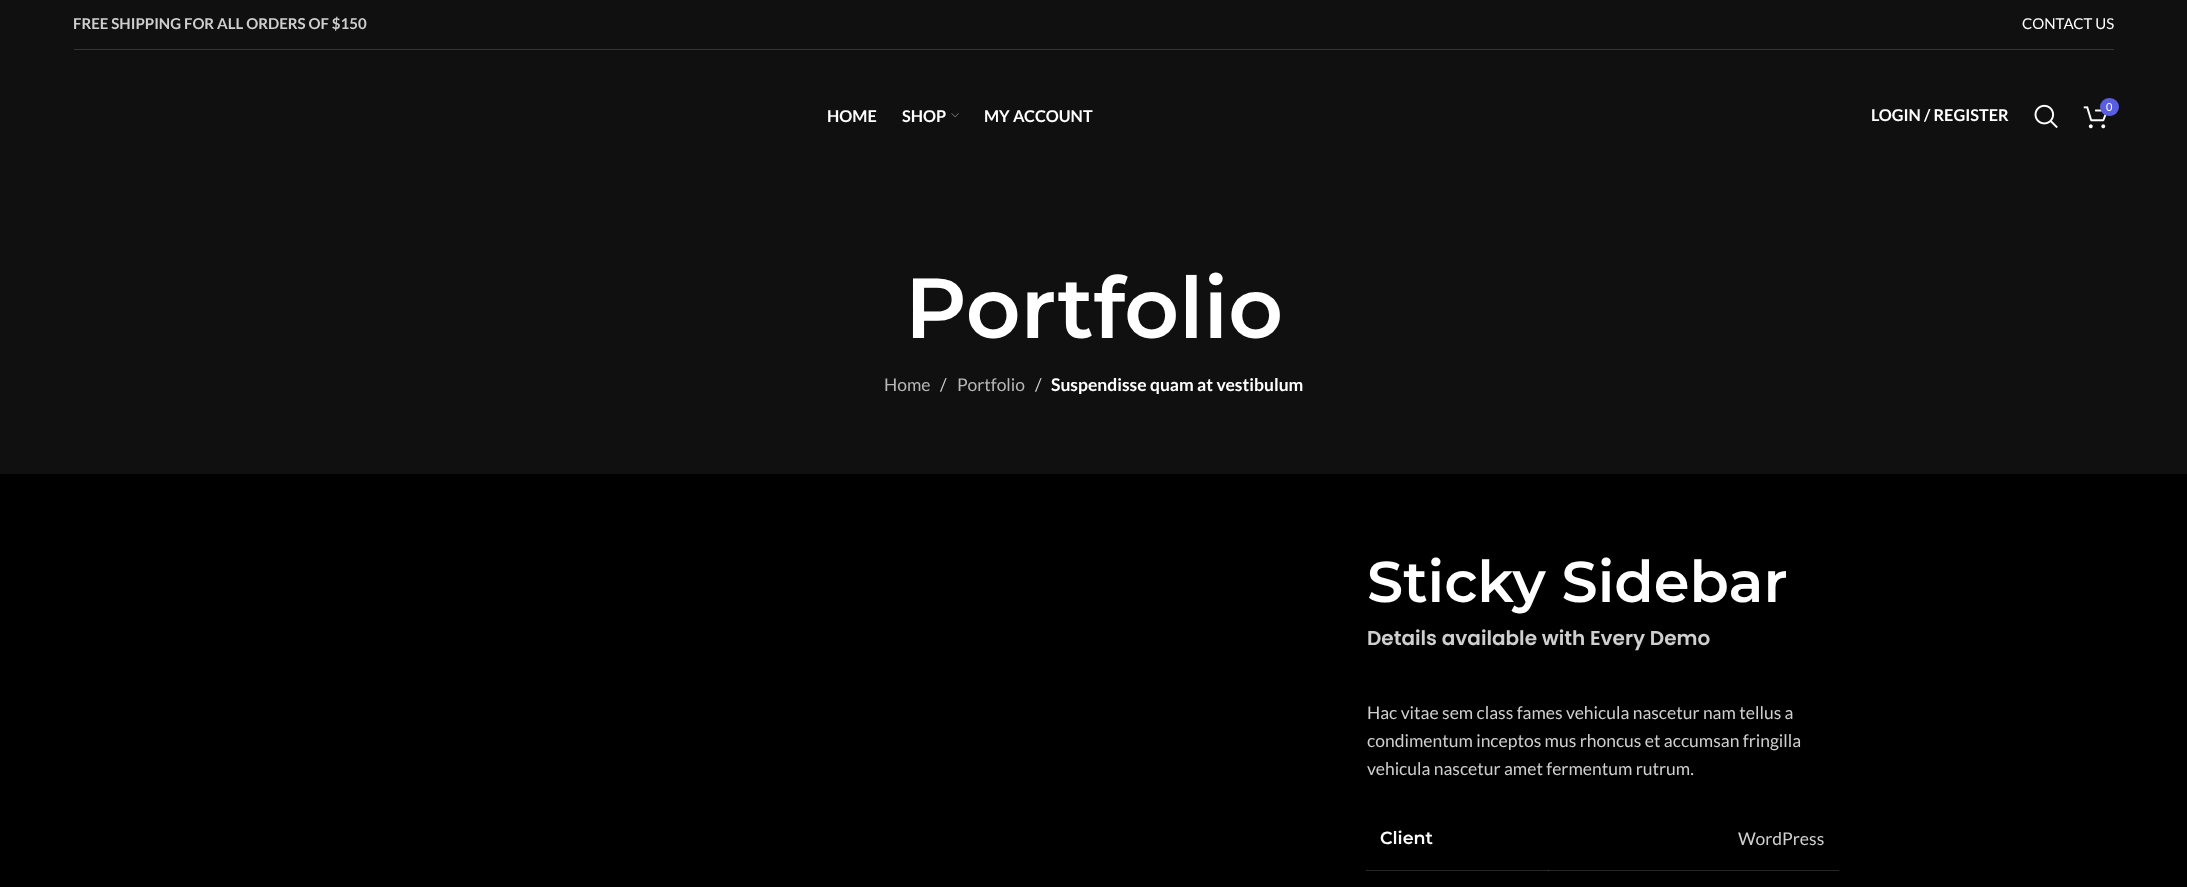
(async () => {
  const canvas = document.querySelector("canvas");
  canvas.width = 2187;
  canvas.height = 887;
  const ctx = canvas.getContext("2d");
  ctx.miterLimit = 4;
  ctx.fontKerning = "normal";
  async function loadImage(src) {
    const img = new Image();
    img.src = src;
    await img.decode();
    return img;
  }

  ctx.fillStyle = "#000000";
  ctx.fillRect(0, 0, 2187, 887);
  ctx.fillStyle = "#101010";
  ctx.fillRect(0, 0, 2187, 181);
  ctx.fillStyle = "#343434";
  ctx.fillRect(74, 49, 2040, 1);
  ctx.drawImage(await loadImage("img/1.png"), 951, 113, 8, 5);
  ctx.drawImage(await loadImage("img/2.png"), 2034, 104, 24, 25);
  ctx.drawImage(await loadImage("img/3.png"), 2083, 106, 24, 23);
  ctx.fillStyle = "#595ee0";
  ctx.beginPath();
  ctx.roundRect(2100, 98, 19, 18, 9);
  ctx.fill();
  for (const [x, y, w, h, color] of [
    [1366, 870, 473, 1, "#262626"],
    [0, 181, 2187, 293, "#101010"],
    [1548, 870, 1, 1, "#474747"],
  ]) {
    ctx.fillStyle = color;
    ctx.fillRect(x, y, w, h);
  }
  ctx.font = "bold 15px Lato";
  ctx.fillStyle = "#cfcfcf";
  ctx.fillText("FREE SHIPPING FOR ALL ORDERS OF $150", 73, 29);
  ctx.font = "15px Lato";
  ctx.fillStyle = "#ffffff";
  ctx.fillText("CONTACT US", 2022, 29);
  ctx.font = "bold 16.25px Lato";
  for (const [text, x, y] of [
    ["HOME", 827, 122],
    ["SHOP", 902, 122],
    ["MY ACCOUNT", 984, 122],
    ["LOGIN / REGISTER", 1871, 121],
  ]) {
    ctx.fillText(text, x, y);
  }
  ctx.font = "11px Lato";
  ctx.fillText("0", 2106, 111);
  ctx.font = "600 85px Montserrat";
  ctx.fillText("Portfolio", 905, 338);
  ctx.font = "17.5px Lato";
  ctx.fillStyle = "#b7b7b7";
  ctx.fillText("Home", 884, 391);
  ctx.fillStyle = "#cfcfcf";
  ctx.fillText("/", 940, 391);
  ctx.fillStyle = "#b7b7b7";
  ctx.fillText("Portfolio", 957, 391);
  ctx.fillStyle = "#cfcfcf";
  ctx.fillText("/", 1035, 391);
  ctx.font = "bold 17.5px Lato";
  ctx.fillStyle = "#ffffff";
  ctx.fillText("Suspendisse quam at vestibulum", 1051, 391);
  ctx.font = "600 57.5px Montserrat";
  ctx.fillText("Sticky Sidebar", 1367, 602);
  ctx.font = "600 20px Poppins";
  ctx.fillStyle = "#cfcfcf";
  ctx.fillText("Details available with Every Demo", 1367, 645);
  ctx.font = "17.5px Lato";
  for (const [text, x, y] of [
    ["Hac vitae sem class fames vehicula nascetur nam tellus a", 1367, 719],
    ["condimentum inceptos mus rhoncus et accumsan fringilla", 1367, 747],
    ["vehicula nascetur amet fermentum rutrum.", 1367, 775],
  ]) {
    ctx.fillText(text, x, y);
  }
  ctx.font = "600 17.5px Montserrat";
  ctx.fillStyle = "#ffffff";
  ctx.fillText("Client", 1380, 844);
  ctx.font = "17.5px Lato";
  ctx.fillStyle = "#cfcfcf";
  ctx.fillText("WordPress", 1738, 845);
})();
